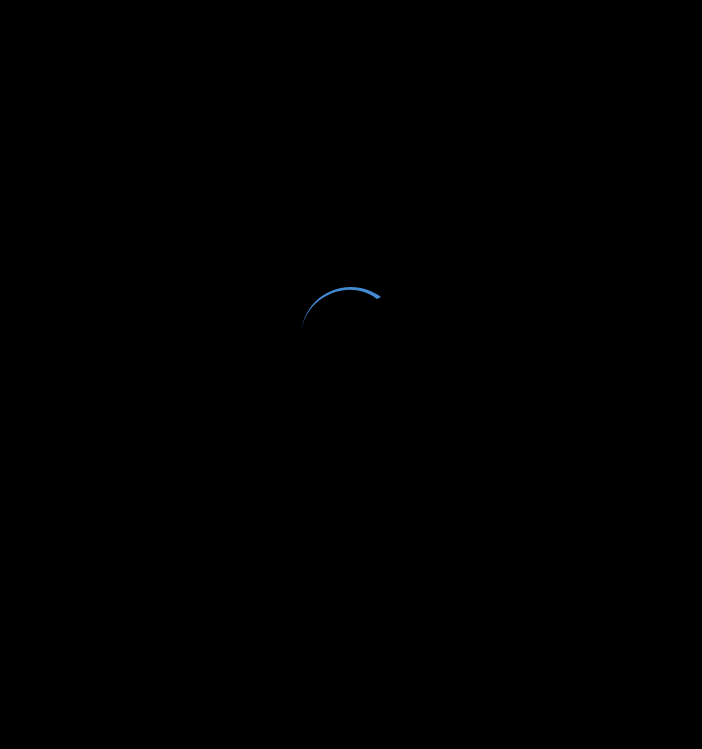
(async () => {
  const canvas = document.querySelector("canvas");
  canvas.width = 702;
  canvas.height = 749;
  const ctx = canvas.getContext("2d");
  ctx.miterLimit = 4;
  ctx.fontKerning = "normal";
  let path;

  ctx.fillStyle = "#000000";
  ctx.fillRect(0, 0, 702, 749);
  ctx.fillStyle = "#448bd6";
  path = new Path2D("M351 287C323 287 301 309 301 337C301 299 347 276 377 299L381 297C373 291 362 287 351 287Z");
  ctx.fill(path);
})();
